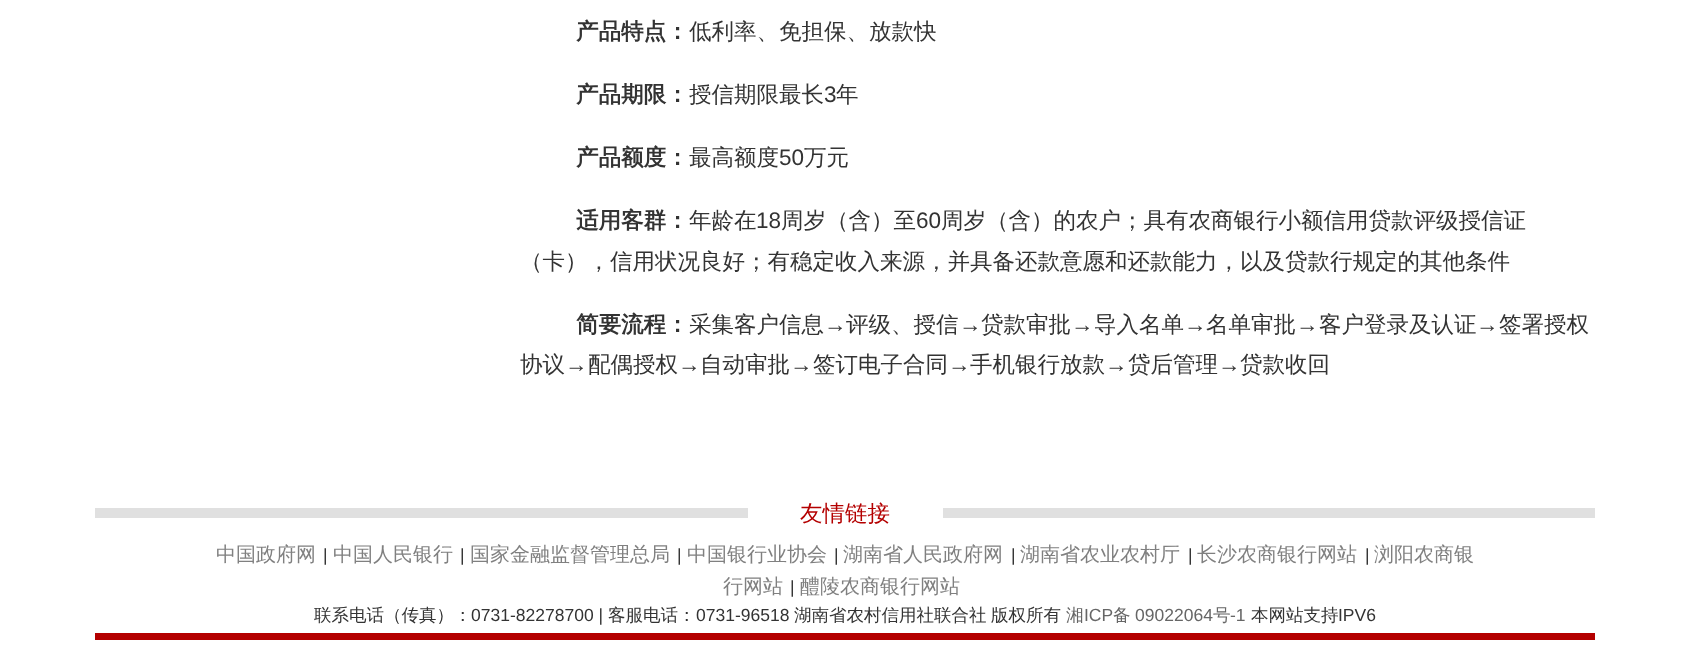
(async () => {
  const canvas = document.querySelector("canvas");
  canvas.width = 1690;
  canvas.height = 657;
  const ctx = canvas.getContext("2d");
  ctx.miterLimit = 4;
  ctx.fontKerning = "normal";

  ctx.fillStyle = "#ffffff";
  ctx.fillRect(0, 0, 1690, 657);
  for (const [x, y, w, h, color] of [
    [95, 633, 1500, 7, "#b40000"],
    [95, 508, 653, 10, "#e0e0e0"],
    [943, 508, 652, 10, "#e0e0e0"],
  ]) {
    ctx.fillStyle = color;
    ctx.fillRect(x, y, w, h);
  }
  ctx.font = "bold 22.5px WenQuanYi Zen Hei";
  ctx.fillStyle = "#333333";
  ctx.fillText("产品特点：", 576, 39);
  ctx.font = "500 22.5px WenQuanYi Zen Hei";
  ctx.fillText("低利率、免担保、放款快", 689, 39);
  ctx.font = "bold 22.5px WenQuanYi Zen Hei";
  ctx.fillText("产品期限：", 576, 102);
  ctx.font = "500 22.5px WenQuanYi Zen Hei";
  ctx.fillText("授信期限最长", 689, 102);
  ctx.font = "22.5px Liberation Sans";
  ctx.fillText("3", 824, 102);
  ctx.font = "500 22.5px WenQuanYi Zen Hei";
  ctx.fillText("年", 836, 102);
  ctx.font = "bold 22.5px WenQuanYi Zen Hei";
  ctx.fillText("产品额度：", 576, 165);
  ctx.font = "500 22.5px WenQuanYi Zen Hei";
  ctx.fillText("最高额度", 689, 165);
  ctx.font = "22.5px Liberation Sans";
  ctx.fillText("50", 779, 165);
  ctx.font = "500 22.5px WenQuanYi Zen Hei";
  ctx.fillText("万元", 804, 165);
  ctx.font = "bold 22.5px WenQuanYi Zen Hei";
  ctx.fillText("适用客群：", 576, 228);
  ctx.font = "500 22.5px WenQuanYi Zen Hei";
  ctx.fillText("年龄在", 689, 228);
  ctx.font = "22.5px Liberation Sans";
  ctx.fillText("18", 756, 228);
  ctx.font = "500 22.5px WenQuanYi Zen Hei";
  ctx.fillText("周岁（含）至", 781, 228);
  ctx.font = "22.5px Liberation Sans";
  ctx.fillText("60", 916, 228);
  ctx.font = "500 22.5px WenQuanYi Zen Hei";
  ctx.fillText("周岁（含）的农户；具有农商银行小额信用贷款评级授信证", 941, 228);
  ctx.fillText("（卡），信用状况良好；有稳定收入来源，并具备还款意愿和还款能力，以及贷款行规定的其他条件", 520, 269);
  ctx.font = "bold 22.5px WenQuanYi Zen Hei";
  ctx.fillText("简要流程：", 576, 332);
  ctx.font = "500 22.5px WenQuanYi Zen Hei";
  ctx.fillText("采集客户信息", 689, 332);
  ctx.font = "22.5px Liberation Sans";
  ctx.fillText("→", 824, 332);
  ctx.font = "500 22.5px WenQuanYi Zen Hei";
  ctx.fillText("评级、授信", 846, 332);
  ctx.font = "22.5px Liberation Sans";
  ctx.fillText("→", 959, 332);
  ctx.font = "500 22.5px WenQuanYi Zen Hei";
  ctx.fillText("贷款审批", 981, 332);
  ctx.font = "22.5px Liberation Sans";
  ctx.fillText("→", 1071, 332);
  ctx.font = "500 22.5px WenQuanYi Zen Hei";
  ctx.fillText("导入名单", 1094, 332);
  ctx.font = "22.5px Liberation Sans";
  ctx.fillText("→", 1184, 332);
  ctx.font = "500 22.5px WenQuanYi Zen Hei";
  ctx.fillText("名单审批", 1206, 332);
  ctx.font = "22.5px Liberation Sans";
  ctx.fillText("→", 1296, 332);
  ctx.font = "500 22.5px WenQuanYi Zen Hei";
  ctx.fillText("客户登录及认证", 1319, 332);
  ctx.font = "22.5px Liberation Sans";
  ctx.fillText("→", 1476, 332);
  ctx.font = "500 22.5px WenQuanYi Zen Hei";
  ctx.fillText("签署授权", 1499, 332);
  ctx.fillText("协议", 520, 372);
  ctx.font = "22.5px Liberation Sans";
  ctx.fillText("→", 565, 372);
  ctx.font = "500 22.5px WenQuanYi Zen Hei";
  ctx.fillText("配偶授权", 588, 372);
  ctx.font = "22.5px Liberation Sans";
  ctx.fillText("→", 678, 372);
  ctx.font = "500 22.5px WenQuanYi Zen Hei";
  ctx.fillText("自动审批", 700, 372);
  ctx.font = "22.5px Liberation Sans";
  ctx.fillText("→", 790, 372);
  ctx.font = "500 22.5px WenQuanYi Zen Hei";
  ctx.fillText("签订电子合同", 813, 372);
  ctx.font = "22.5px Liberation Sans";
  ctx.fillText("→", 948, 372);
  ctx.font = "500 22.5px WenQuanYi Zen Hei";
  ctx.fillText("手机银行放款", 970, 372);
  ctx.font = "22.5px Liberation Sans";
  ctx.fillText("→", 1105, 372);
  ctx.font = "500 22.5px WenQuanYi Zen Hei";
  ctx.fillText("贷后管理", 1128, 372);
  ctx.font = "22.5px Liberation Sans";
  ctx.fillText("→", 1218, 372);
  ctx.font = "500 22.5px WenQuanYi Zen Hei";
  ctx.fillText("贷款收回", 1240, 372);
  ctx.fillStyle = "#b40000";
  ctx.fillText("友情链接", 800, 521);
  ctx.font = "500 20px WenQuanYi Zen Hei";
  ctx.fillStyle = "#808080";
  ctx.fillText("中国政府网", 216, 561);
  ctx.font = "17.5px Liberation Sans";
  ctx.fillStyle = "#333333";
  ctx.fillText("|", 323, 561);
  ctx.font = "500 20px WenQuanYi Zen Hei";
  ctx.fillStyle = "#808080";
  ctx.fillText("中国人民银行", 333, 561);
  ctx.font = "17.5px Liberation Sans";
  ctx.fillStyle = "#333333";
  ctx.fillText("|", 460, 561);
  ctx.font = "500 20px WenQuanYi Zen Hei";
  ctx.fillStyle = "#808080";
  ctx.fillText("国家金融监督管理总局", 470, 561);
  ctx.font = "17.5px Liberation Sans";
  ctx.fillStyle = "#333333";
  ctx.fillText("|", 677, 561);
  ctx.font = "500 20px WenQuanYi Zen Hei";
  ctx.fillStyle = "#808080";
  ctx.fillText("中国银行业协会", 687, 561);
  ctx.font = "17.5px Liberation Sans";
  ctx.fillStyle = "#333333";
  ctx.fillText("|", 834, 561);
  ctx.font = "500 20px WenQuanYi Zen Hei";
  ctx.fillStyle = "#808080";
  ctx.fillText("湖南省人民政府网", 843, 561);
  ctx.font = "17.5px Liberation Sans";
  ctx.fillStyle = "#333333";
  ctx.fillText("|", 1011, 561);
  ctx.font = "500 20px WenQuanYi Zen Hei";
  ctx.fillStyle = "#808080";
  ctx.fillText("湖南省农业农村厅", 1020, 561);
  ctx.font = "17.5px Liberation Sans";
  ctx.fillStyle = "#333333";
  ctx.fillText("|", 1188, 561);
  ctx.font = "500 20px WenQuanYi Zen Hei";
  ctx.fillStyle = "#808080";
  ctx.fillText("长沙农商银行网站", 1197, 561);
  ctx.font = "17.5px Liberation Sans";
  ctx.fillStyle = "#333333";
  ctx.fillText("|", 1365, 561);
  ctx.font = "500 20px WenQuanYi Zen Hei";
  ctx.fillStyle = "#808080";
  ctx.fillText("浏阳农商银", 1374, 561);
  ctx.fillText("行网站", 723, 593);
  ctx.font = "17.5px Liberation Sans";
  ctx.fillStyle = "#333333";
  ctx.fillText("|", 790, 593);
  ctx.font = "500 20px WenQuanYi Zen Hei";
  ctx.fillStyle = "#808080";
  ctx.fillText("醴陵农商银行网站", 800, 593);
  ctx.font = "500 17.5px WenQuanYi Zen Hei";
  ctx.fillStyle = "#333333";
  ctx.fillText("联系电话（传真）：", 314, 621);
  ctx.font = "17.5px Liberation Sans";
  ctx.fillText("0731-82278700 |", 471, 621);
  ctx.font = "500 17.5px WenQuanYi Zen Hei";
  ctx.fillText("客服电话：", 608, 621);
  ctx.font = "17.5px Liberation Sans";
  ctx.fillText("0731-96518", 696, 621);
  ctx.font = "500 17.5px WenQuanYi Zen Hei";
  ctx.fillText("湖南省农村信用社联合社", 794, 621);
  ctx.fillText("版权所有", 991, 621);
  ctx.fillStyle = "#666666";
  ctx.fillText("湘", 1066, 621);
  ctx.font = "17.5px Liberation Sans";
  ctx.fillText("ICP", 1084, 621);
  ctx.font = "500 17.5px WenQuanYi Zen Hei";
  ctx.fillText("备", 1113, 621);
  ctx.font = "17.5px Liberation Sans";
  ctx.fillText("09022064", 1135, 621);
  ctx.font = "500 17.5px WenQuanYi Zen Hei";
  ctx.fillText("号", 1213, 621);
  ctx.font = "17.5px Liberation Sans";
  ctx.fillText("-1", 1230, 621);
  ctx.font = "500 17.5px WenQuanYi Zen Hei";
  ctx.fillStyle = "#333333";
  ctx.fillText("本网站支持", 1251, 621);
  ctx.font = "17.5px Liberation Sans";
  ctx.fillText("IPV6", 1338, 621);
})();
